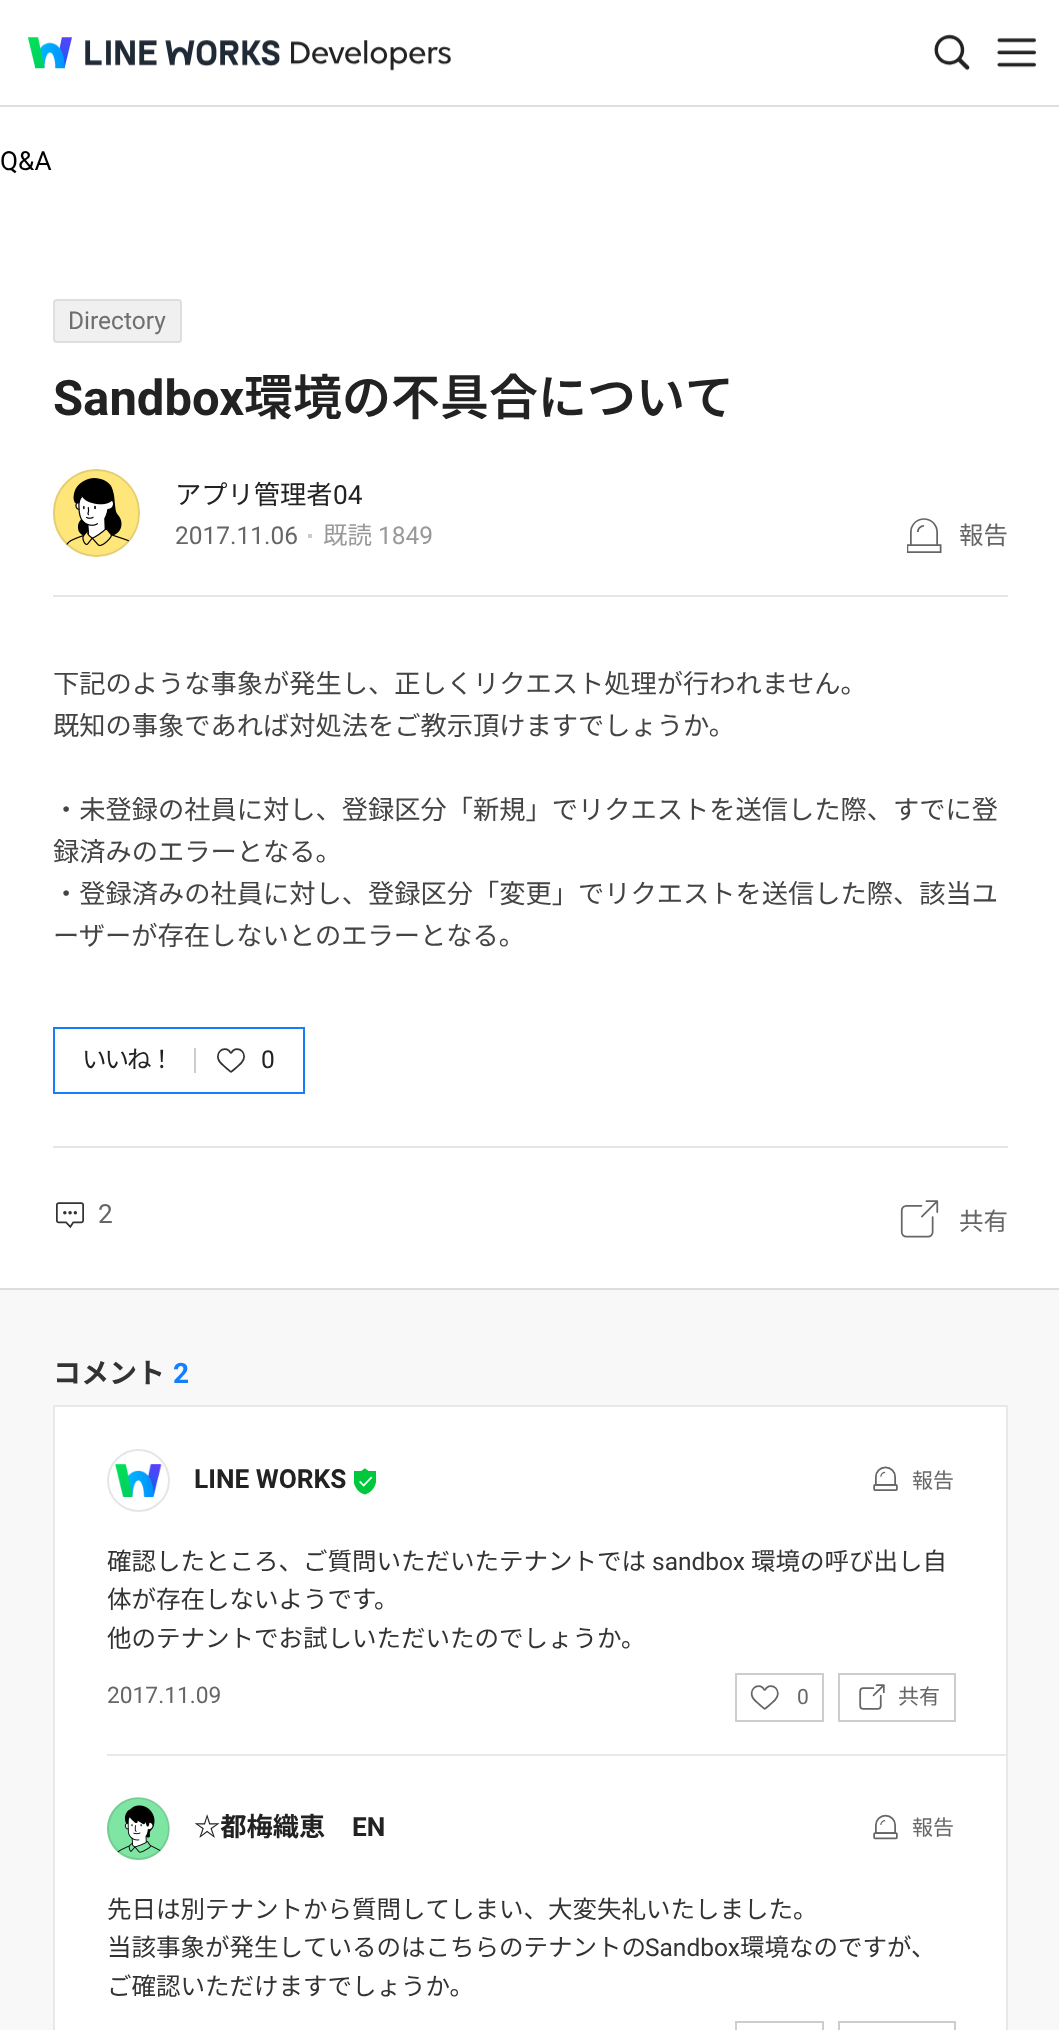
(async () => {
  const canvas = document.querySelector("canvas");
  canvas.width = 1059;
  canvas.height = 2030;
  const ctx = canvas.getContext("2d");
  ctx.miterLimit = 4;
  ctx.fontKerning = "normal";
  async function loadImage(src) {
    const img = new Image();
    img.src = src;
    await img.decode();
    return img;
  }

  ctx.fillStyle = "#ffffff";
  ctx.fillRect(0, 0, 1059, 2030);
  ctx.fillStyle = "#dedede";
  ctx.fillRect(0, 105, 1059, 2);
  ctx.drawImage(await loadImage("img/1.png"), 28, 37, 252, 32);
  ctx.drawImage(await loadImage("img/2.png"), 291, 40, 160, 31);
  ctx.drawImage(await loadImage("img/3.png"), 934, 34, 36, 37);
  ctx.drawImage(await loadImage("img/4.png"), 997, 38, 40, 30);
  ctx.fillStyle = "#f8f8f9";
  ctx.fillRect(0, 1290, 1059, 740);
  ctx.fillStyle = "#dddddd";
  ctx.fillRect(0, 1288, 1059, 2);
  ctx.fillStyle = "#f0f0f0";
  ctx.beginPath();
  ctx.roundRect(54, 300, 127, 42, 3);
  ctx.fill();
  ctx.strokeStyle = "#dedede";
  ctx.lineWidth = 2;
  ctx.stroke();
  ctx.drawImage(await loadImage("img/5.png"), 53, 469, 87, 88);
  ctx.beginPath();
  ctx.roundRect(54, 470, 85, 86, 42.5);
  ctx.strokeStyle = "rgba(0, 0, 0, 0.1)";
  ctx.stroke();
  ctx.fillStyle = "#cccccc";
  ctx.fillRect(308, 534, 4, 4);
  ctx.drawImage(await loadImage("img/6.png"), 907, 518, 35, 35);
  ctx.fillStyle = "#e5e5e5";
  ctx.fillRect(53, 595, 955, 2);
  ctx.strokeStyle = "#157efb";
  ctx.strokeRect(54, 1028, 250, 65);
  ctx.fillStyle = "#cdcdcd";
  ctx.fillRect(194, 1048, 2, 25);
  ctx.drawImage(await loadImage("img/7.png"), 217, 1048, 28, 25);
  ctx.fillStyle = "#e5e5e5";
  ctx.fillRect(53, 1146, 955, 2);
  ctx.drawImage(await loadImage("img/8.png"), 56, 1202, 28, 27);
  ctx.drawImage(await loadImage("img/9.png"), 900, 1200, 39, 38);
  ctx.fillStyle = "#ffffff";
  ctx.beginPath();
  ctx.rect(54, 1406, 953, 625);
  ctx.fill();
  ctx.strokeStyle = "#e8e8e8";
  ctx.stroke();
  ctx.drawImage(await loadImage("img/10.png"), 115, 1464, 47, 33);
  ctx.beginPath();
  ctx.arc(138.5, 1480.5, 30.5, 0, Math.PI * 2);
  ctx.strokeStyle = "#e6e6e6";
  ctx.stroke();
  ctx.drawImage(await loadImage("img/11.png"), 354, 1468, 22, 27);
  ctx.drawImage(await loadImage("img/12.png"), 873, 1466, 25, 25);
  ctx.strokeStyle = "#cdcdcd";
  ctx.strokeRect(736, 1674, 87, 47);
  ctx.drawImage(await loadImage("img/13.png"), 750, 1685, 29, 25);
  ctx.strokeRect(839, 1674, 116, 47);
  ctx.drawImage(await loadImage("img/14.png"), 859, 1684, 26, 26);
  ctx.fillStyle = "#e8e8e8";
  ctx.fillRect(107, 1754, 899, 2);
  ctx.drawImage(await loadImage("img/15.png"), 107, 1797, 63, 63);
  ctx.beginPath();
  ctx.arc(138.5, 1828.5, 30.5, 0, Math.PI * 2);
  ctx.strokeStyle = "rgba(0, 0, 0, 0.1)";
  ctx.stroke();
  ctx.drawImage(await loadImage("img/16.png"), 873, 1814, 25, 26);
  ctx.strokeStyle = "#cdcdcd";
  ctx.strokeRect(736, 2022, 87, 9);
  ctx.strokeRect(839, 2022, 116, 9);
  ctx.font = "26.25px Roboto";
  ctx.fillStyle = "#000000";
  ctx.fillText("Q&A", 0, 170);
  ctx.font = "24.5px Roboto";
  ctx.fillStyle = "#6f6f6f";
  ctx.fillText("Directory", 68, 329);
  ctx.font = "bold 49px Roboto";
  ctx.fillStyle = "#222222";
  ctx.fillText("Sandbox", 53, 415);
  ctx.font = "600 49px Noto Sans JP";
  ctx.fillText("環境の不具合について", 244, 415);
  ctx.font = "26.25px Noto Sans CJK JP";
  ctx.fillText("アプリ管理者", 175, 504);
  ctx.font = "26.25px Roboto";
  ctx.fillText("04", 333, 504);
  ctx.font = "24.5px Roboto";
  ctx.fillStyle = "#666666";
  ctx.fillText("2017.11.06", 175, 544);
  ctx.font = "24.5px Noto Sans CJK JP";
  ctx.fillStyle = "#999999";
  ctx.fillText("既読", 323, 544);
  ctx.font = "24.5px Roboto";
  ctx.fillText("1849", 378, 544);
  ctx.font = "24.5px Noto Sans CJK JP";
  ctx.fillStyle = "#666666";
  ctx.fillText("報告", 959, 544);
  ctx.font = "26.25px Noto Sans CJK JP";
  ctx.fillStyle = "#444444";
  for (const [text, x, y] of [
    ["下記のような事象が発生し、正しくリクエスト処理が行われません。", 53, 693],
    ["既知の事象であれば対処法をご教示頂けますでしょうか。", 53, 735],
    ["・未登録の社員に対し、登録区分「新規」でリクエストを送信した際、すでに登", 53, 819],
    ["録済みのエラーとなる。", 53, 861],
    ["・登録済みの社員に対し、登録区分「変更」でリクエストを送信した際、該当ユ", 53, 903],
    ["ーザーが存在しないとのエラーとなる。", 53, 945],
  ]) {
    ctx.fillText(text, x, y);
  }
  ctx.letterSpacing = "-2px";
  ctx.font = "24.5px Noto Sans CJK JP";
  ctx.fillStyle = "#222222";
  ctx.fillText("いいね！", 82, 1068);
  ctx.letterSpacing = "0px";
  ctx.font = "24.5px Roboto";
  ctx.fillText("0", 261, 1068);
  ctx.font = "26.25px Roboto";
  ctx.fillStyle = "#666666";
  ctx.fillText("2", 98, 1223);
  ctx.font = "24.5px Noto Sans CJK JP";
  ctx.fillText("共有", 959, 1230);
  ctx.font = "bold 28px Noto Sans JP";
  ctx.fillStyle = "#333333";
  ctx.fillText("コメント", 53, 1383);
  ctx.font = "bold 28px Roboto";
  ctx.fillStyle = "#157efb";
  ctx.fillText("2", 173, 1383);
  ctx.font = "bold 26.25px Roboto";
  ctx.fillStyle = "#222222";
  ctx.fillText("LINE WORKS", 194, 1488);
  ctx.font = "21px Noto Sans CJK JP";
  ctx.fillStyle = "#666666";
  ctx.fillText("報告", 912, 1488);
  ctx.font = "24.5px Noto Sans CJK JP";
  ctx.fillStyle = "#333333";
  ctx.fillText("確認したところ、ご質問いただいたテナントでは", 107, 1570);
  ctx.font = "24.5px Roboto";
  ctx.fillText("sandbox", 652, 1570);
  ctx.font = "24.5px Noto Sans CJK JP";
  for (const [text, x, y] of [
    ["環境の呼び出し自", 751, 1570],
    ["体が存在しないようです。", 107, 1608],
    ["他のテナントでお試しいただいたのでしょうか。", 107, 1647],
  ]) {
    ctx.fillText(text, x, y);
  }
  ctx.font = "22.75px Roboto";
  ctx.fillStyle = "#666666";
  ctx.fillText("2017.11.09", 107, 1703);
  ctx.font = "21px Roboto";
  ctx.fillText("0", 797, 1704);
  ctx.font = "21px Noto Sans CJK JP";
  ctx.fillText("共有", 898, 1704);
  ctx.font = "bold 26.25px Noto Sans JP";
  ctx.fillStyle = "#222222";
  ctx.fillText("☆都梅織恵", 194, 1836);
  ctx.font = "bold 26.25px Roboto";
  ctx.fillText("EN", 352, 1836);
  ctx.font = "21px Noto Sans CJK JP";
  ctx.fillStyle = "#666666";
  ctx.fillText("報告", 912, 1835);
  ctx.font = "24.5px Noto Sans CJK JP";
  ctx.fillStyle = "#333333";
  ctx.fillText("先日は別テナントから質問してしまい、大変失礼いたしました。", 107, 1918);
  ctx.fillText("当該事象が発生しているのはこちらのテナントの", 107, 1956);
  ctx.font = "24.5px Roboto";
  ctx.fillText("Sandbox", 645, 1956);
  ctx.font = "24.5px Noto Sans CJK JP";
  ctx.fillText("環境なのですが、", 740, 1956);
  ctx.fillText("ご確認いただけますでしょうか。", 107, 1995);
})();
